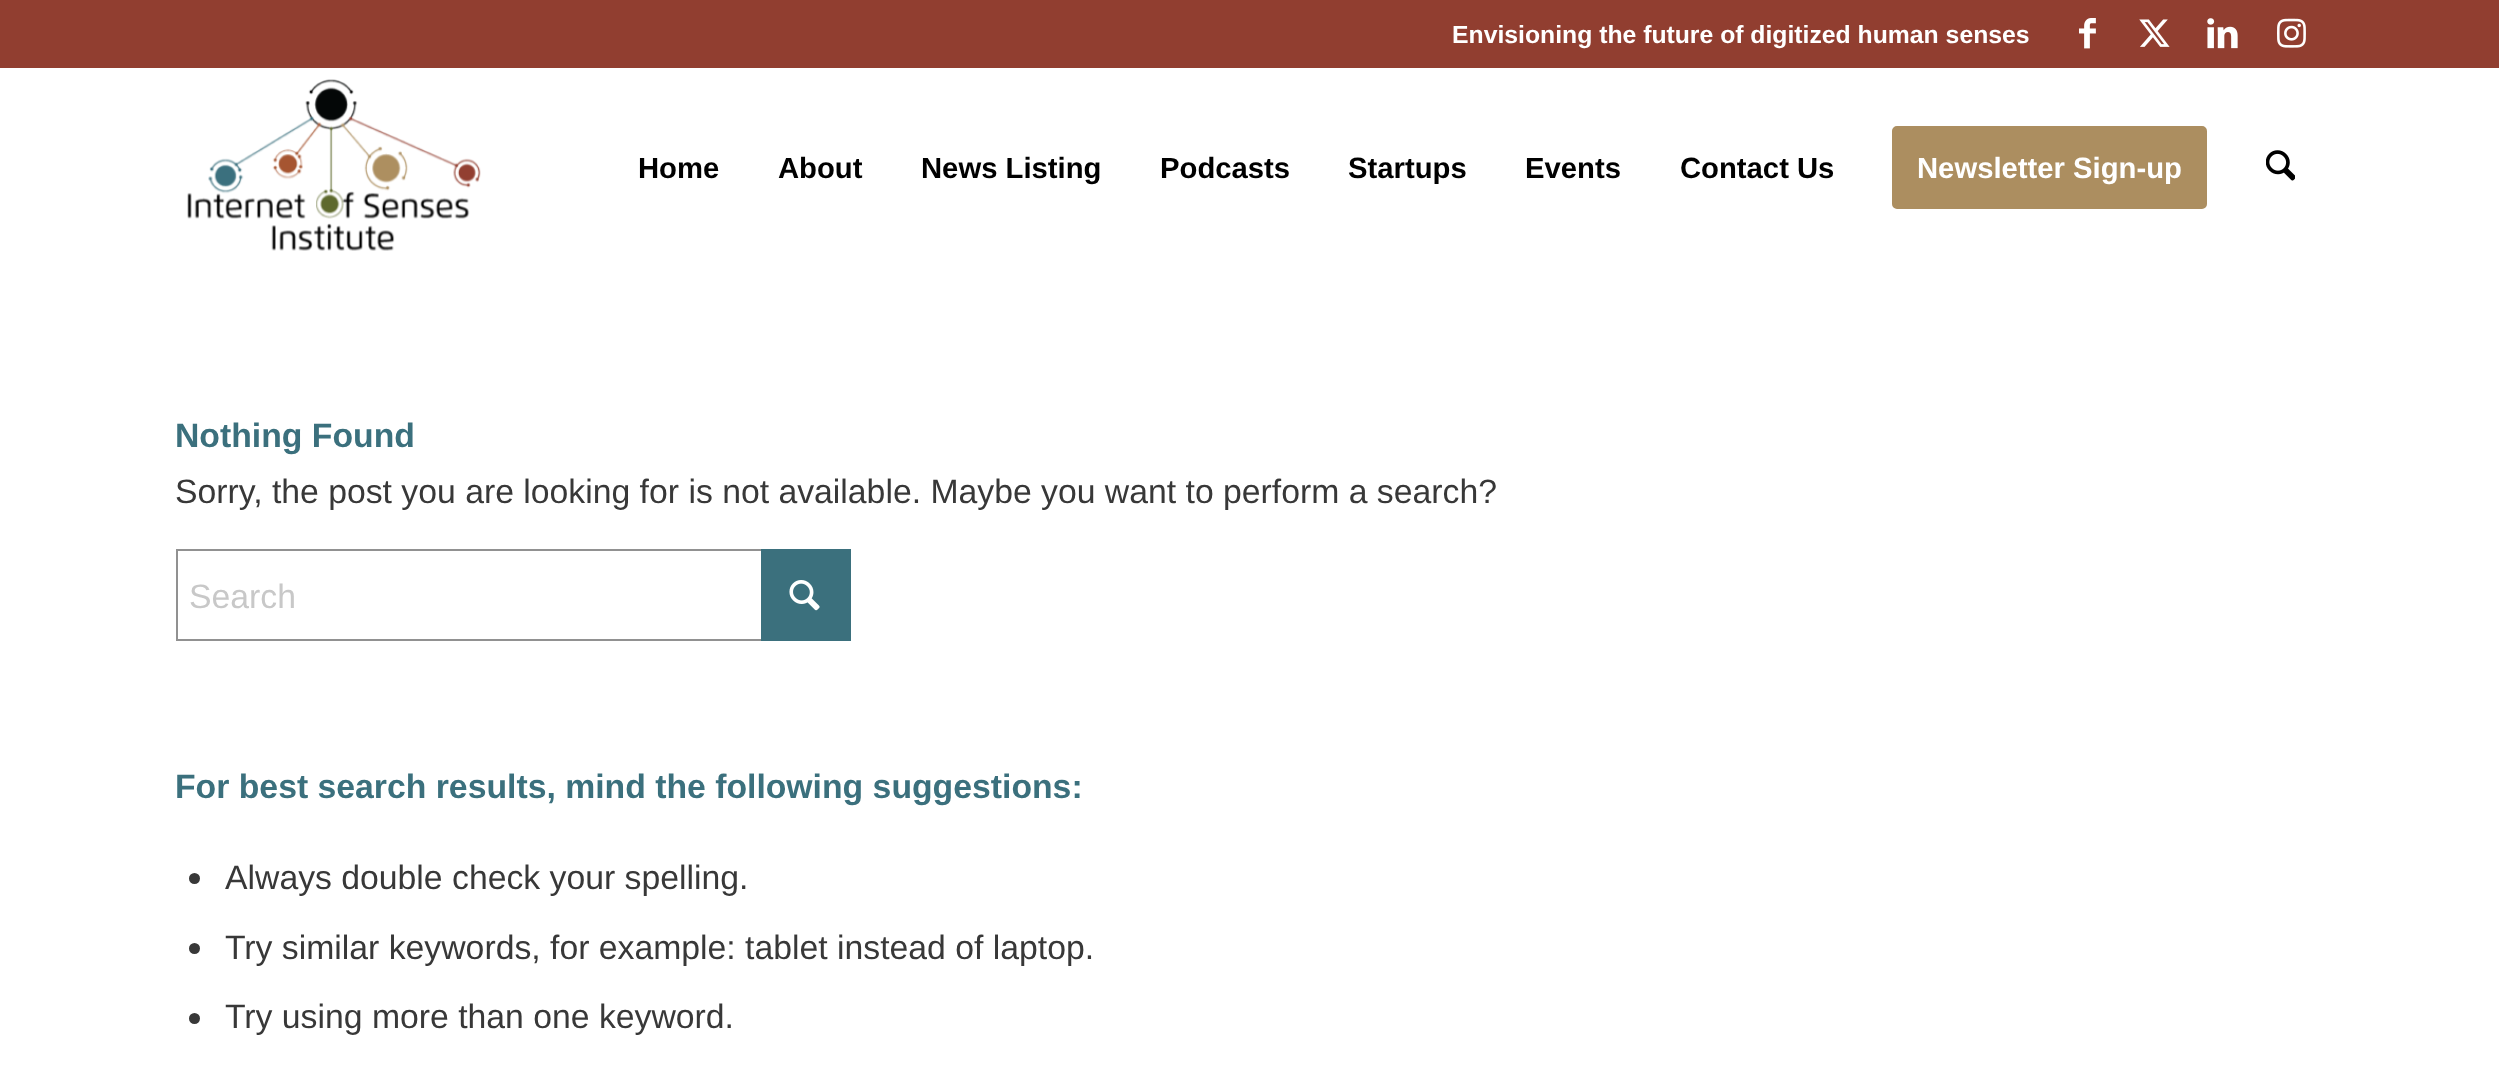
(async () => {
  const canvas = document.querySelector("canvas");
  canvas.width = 2499;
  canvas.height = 1072;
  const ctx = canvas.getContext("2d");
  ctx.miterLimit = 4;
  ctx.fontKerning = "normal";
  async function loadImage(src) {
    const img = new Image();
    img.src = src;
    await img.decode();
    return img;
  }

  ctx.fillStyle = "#ffffff";
  ctx.fillRect(0, 0, 2499, 1072);
  ctx.fillStyle = "#913e30";
  ctx.fillRect(0, 0, 2499, 68);
  ctx.drawImage(await loadImage("img/1.png"), 2079, 18, 17, 31);
  ctx.drawImage(await loadImage("img/2.png"), 2139, 19, 31, 28);
  ctx.drawImage(await loadImage("img/3.png"), 2207, 18, 31, 31);
  ctx.drawImage(await loadImage("img/4.png"), 2277, 18, 29, 30);
  ctx.drawImage(await loadImage("img/5.png"), 187, 79, 294, 172);
  ctx.fillStyle = "#ac8e60";
  ctx.beginPath();
  ctx.roundRect(1894.5, 128.5, 310, 78, 2.5);
  ctx.fill();
  ctx.strokeStyle = "#ac8e60";
  ctx.lineWidth = 5;
  ctx.stroke();
  ctx.drawImage(await loadImage("img/6.png"), 2266, 150, 29, 31);
  ctx.strokeStyle = "#919191";
  ctx.lineWidth = 2;
  ctx.strokeRect(177, 550, 673, 90);
  ctx.fillStyle = "#3b707d";
  ctx.fillRect(761, 549, 90, 92);
  ctx.drawImage(await loadImage("img/7.png"), 789, 580, 31, 31);
  ctx.fillStyle = "#383838";
  ctx.beginPath();
  ctx.arc(194.5, 878.5, 5.5, 0, Math.PI * 2);
  ctx.fill();
  ctx.beginPath();
  ctx.arc(194.5, 948.5, 5.5, 0, Math.PI * 2);
  ctx.fill();
  ctx.beginPath();
  ctx.arc(194.5, 1018.5, 5.5, 0, Math.PI * 2);
  ctx.fill();
  ctx.font = "bold 24.75px Liberation Sans";
  ctx.fillStyle = "#ffffff";
  ctx.fillText("Envisioning the future of digitized human senses", 1452, 43);
  ctx.font = "bold 29.25px Liberation Sans";
  ctx.fillStyle = "#000000";
  for (const [text, x, y] of [
    ["Home", 638, 178],
    ["About", 778, 178],
    ["News Listing", 921, 178],
    ["Podcasts", 1160, 178],
    ["Startups", 1348, 178],
    ["Events", 1525, 178],
    ["Contact Us", 1680, 178],
  ]) {
    ctx.fillText(text, x, y);
  }
  ctx.fillStyle = "#ffffff";
  ctx.fillText("Newsletter Sign-up", 1917, 178);
  ctx.font = "bold 33.75px Liberation Sans";
  ctx.fillStyle = "#3b707d";
  ctx.fillText("Nothing Found", 175, 447);
  ctx.font = "33.75px Liberation Sans";
  ctx.fillStyle = "#383838";
  ctx.fillText("Sorry, the post you are looking for is not available. Maybe you want to perform a search?", 175, 503);
  ctx.fillStyle = "#c8c8c8";
  ctx.fillText("Search", 189, 608);
  ctx.font = "bold 33.75px Liberation Sans";
  ctx.fillStyle = "#3b707d";
  ctx.fillText("For best search results, mind the following suggestions:", 175, 798);
  ctx.font = "33.75px Liberation Sans";
  ctx.fillStyle = "#383838";
  for (const [text, x, y] of [
    ["Always double check your spelling.", 225, 889],
    ["Try similar keywords, for example: tablet instead of laptop.", 225, 959],
    ["Try using more than one keyword.", 225, 1028],
  ]) {
    ctx.fillText(text, x, y);
  }
})();
